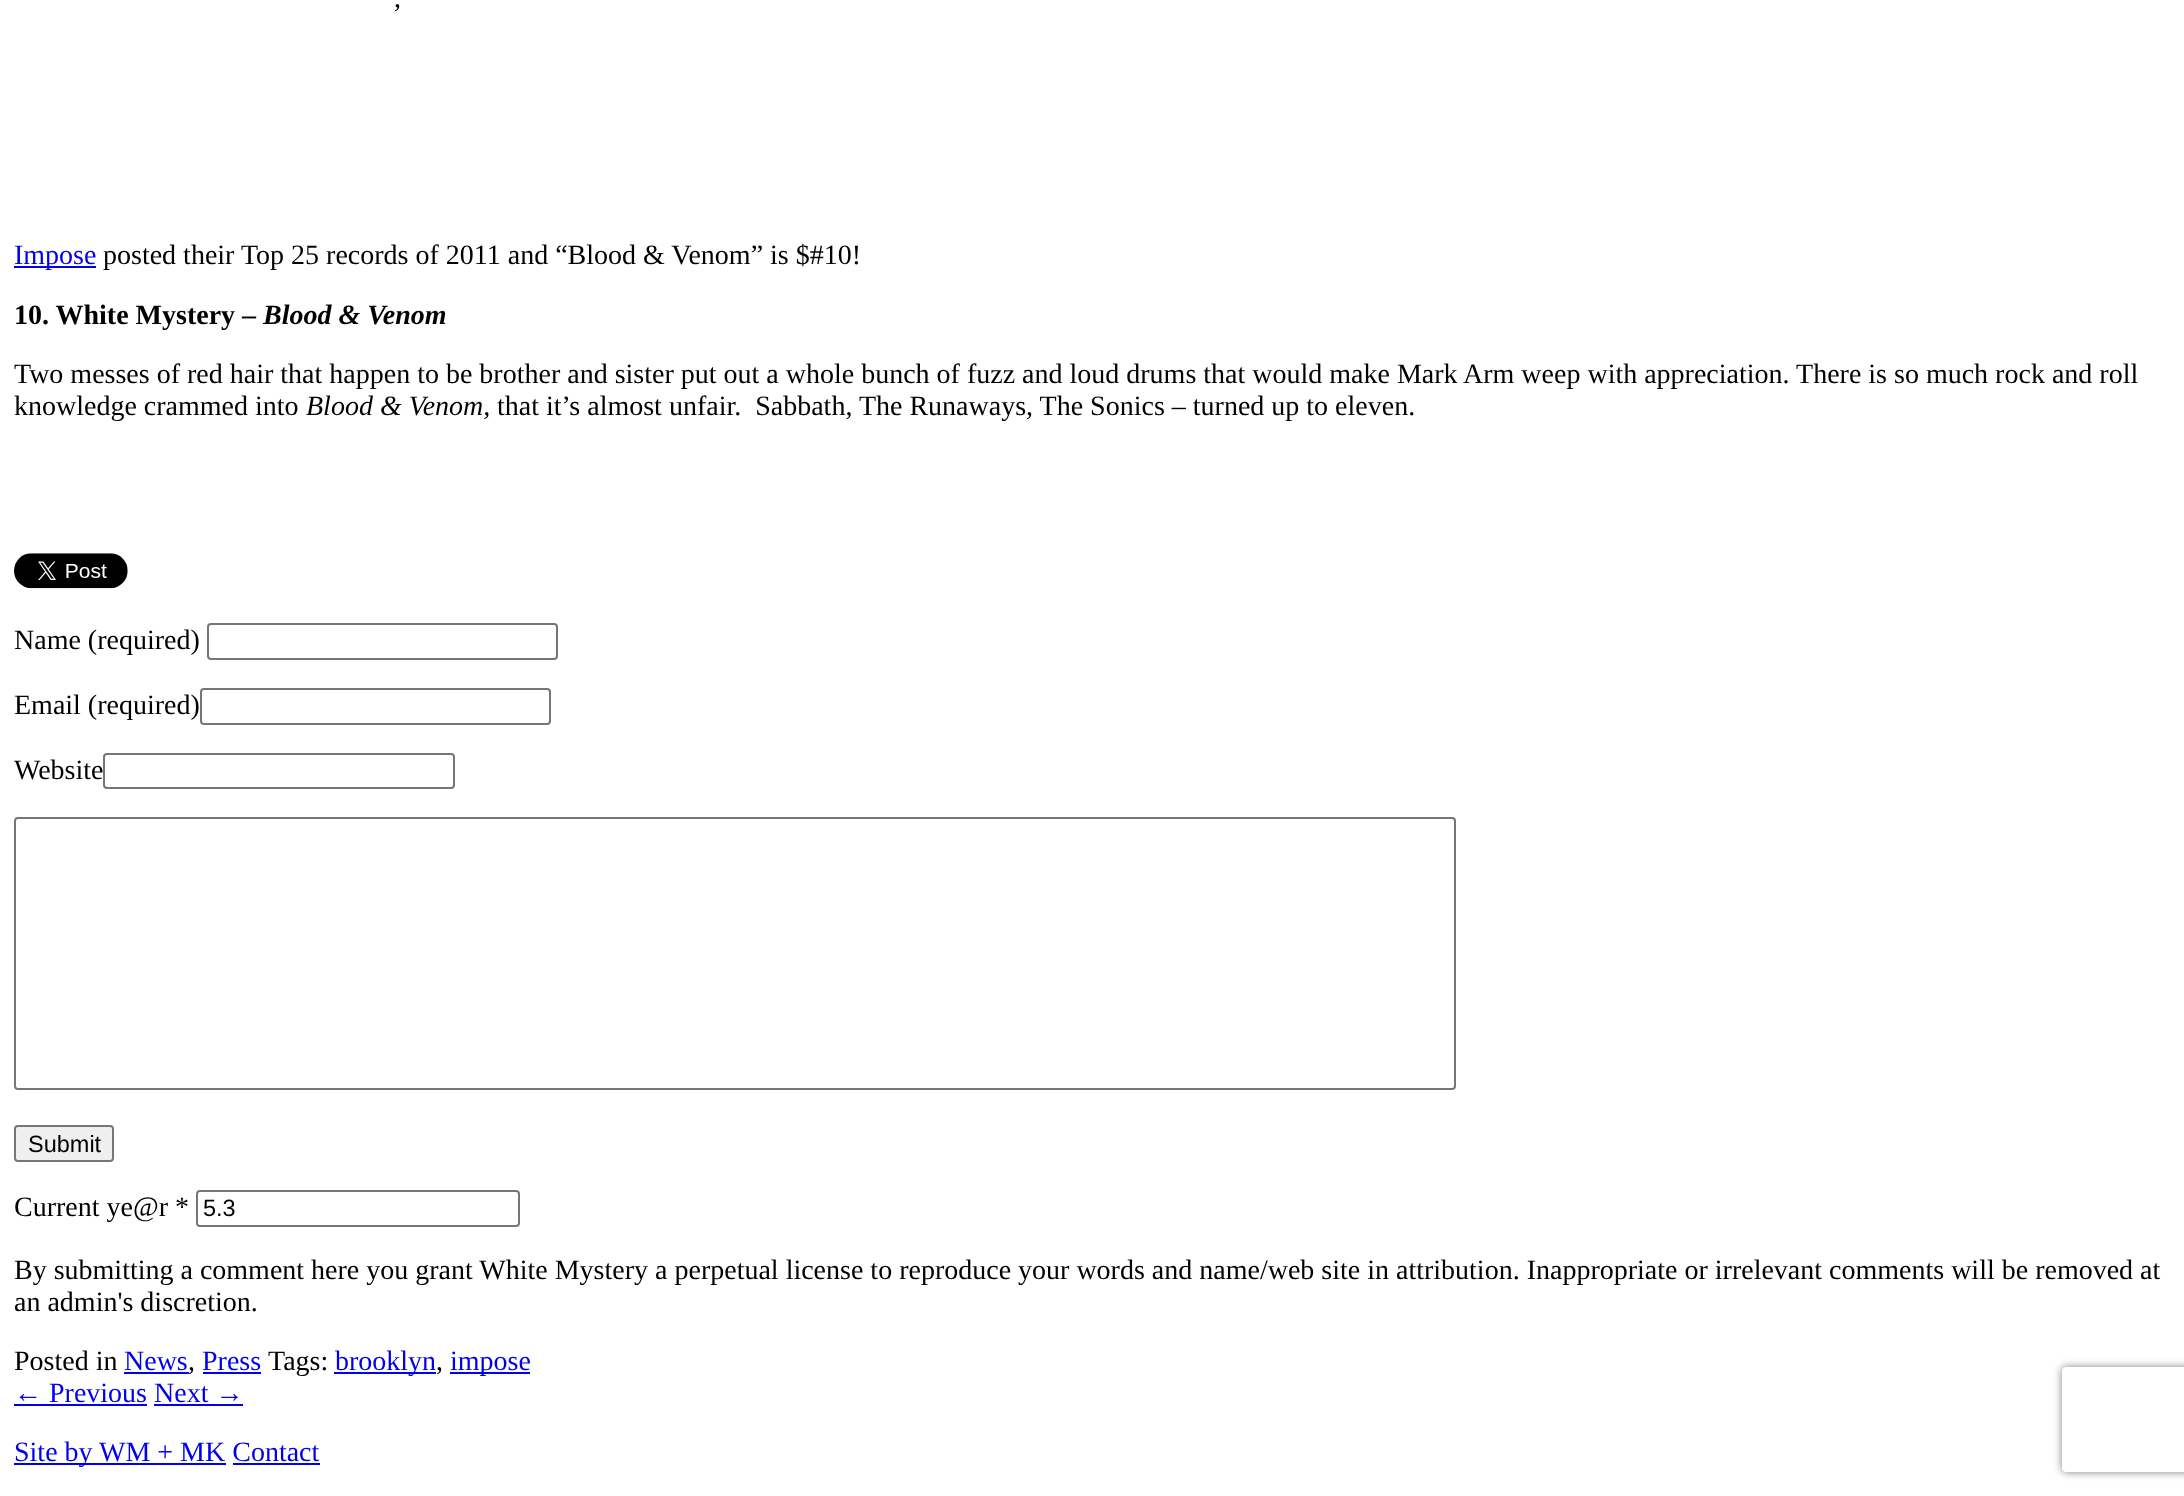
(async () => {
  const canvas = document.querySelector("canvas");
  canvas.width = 2184;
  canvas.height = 1496;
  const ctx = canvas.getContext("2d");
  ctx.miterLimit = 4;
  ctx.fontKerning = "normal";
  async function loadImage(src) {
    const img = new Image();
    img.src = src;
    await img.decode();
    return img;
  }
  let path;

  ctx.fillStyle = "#ffffff";
  ctx.fillRect(0, 0, 2184, 1496);
  ctx.fillStyle = "#0000ee";
  ctx.fillRect(14, 266, 82, 2);
  ctx.drawImage(await loadImage("img/1.png"), 14, 553, 114, 36);
  ctx.beginPath();
  ctx.roundRect(208, 624, 349, 35, 3);
  ctx.strokeStyle = "#767676";
  ctx.lineWidth = 2;
  ctx.stroke();
  ctx.beginPath();
  ctx.roundRect(201, 689, 349, 35, 3);
  ctx.stroke();
  ctx.beginPath();
  ctx.roundRect(104, 754, 350, 34, 3);
  ctx.stroke();
  ctx.beginPath();
  ctx.roundRect(15, 818, 1440, 271, 3);
  ctx.stroke();
  ctx.fillStyle = "#efefef";
  ctx.beginPath();
  ctx.roundRect(15, 1126, 98, 35, 3);
  ctx.fill();
  ctx.stroke();
  ctx.beginPath();
  ctx.roundRect(197, 1191, 322, 35, 3);
  ctx.stroke();
  for (const [x, y, w, h, color] of [
    [124, 1372, 65, 2, "#0000ee"],
    [203, 1372, 58, 2, "#0000ee"],
    [334, 1372, 102, 2, "#0000ee"],
    [450, 1372, 80, 2, "#0000ee"],
    [14, 1404, 133, 2, "#0000ee"],
    [154, 1404, 89, 2, "#0000ee"],
    [14, 1463, 212, 2, "#0000ee"],
    [233, 1463, 87, 2, "#0000ee"],
  ]) {
    ctx.fillStyle = color;
    ctx.fillRect(x, y, w, h);
  }
  ctx.save();
  path = new Path2D("M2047 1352H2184V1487H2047ZM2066 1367H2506C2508 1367 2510 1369 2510 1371V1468C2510 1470 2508 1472 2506 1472H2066C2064 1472 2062 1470 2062 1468V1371C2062 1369 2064 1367 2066 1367Z");
  ctx.clip(path, "evenodd");
  ctx.fillStyle = "#808080";
  ctx.filter = "blur(4.5px)";
  ctx.beginPath();
  ctx.roundRect(2062, 1367, 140, 105, 4);
  ctx.fill();
  ctx.filter = "none";
  ctx.restore();
  ctx.font = "28px Liberation Serif";
  ctx.fillStyle = "#000000";
  ctx.fillText(",", 394, 7);
  ctx.fillStyle = "#0000ee";
  ctx.fillText("Impose", 14, 264);
  ctx.fillStyle = "#000000";
  ctx.fillText("posted their Top 25 records of 2011 and “Blood & Venom” is $#10!", 103, 264);
  ctx.font = "bold 28px Liberation Serif";
  ctx.fillText("10. White Mystery –", 14, 324);
  ctx.font = "italic bold 28px Liberation Serif";
  ctx.fillText("Blood & Venom", 263, 324);
  ctx.font = "28px Liberation Serif";
  ctx.fillText("Two messes of red hair that happen to be brother and sister put out a whole bunch of fuzz and loud drums that would make Mark Arm weep with appreciation. There is so much rock and roll", 14, 383);
  ctx.fillText("knowledge crammed into", 14, 415);
  ctx.font = "italic 28px Liberation Serif";
  ctx.fillText("Blood & Venom,", 306, 415);
  ctx.font = "28px Liberation Serif";
  for (const [text, x, y] of [
    ["that it’s almost unfair.  Sabbath, The Runaways, The Sonics – turned up to eleven.", 497, 415],
    ["Name (required)", 14, 649],
    ["Email (required)", 14, 714],
    ["Website", 14, 779],
  ]) {
    ctx.fillText(text, x, y);
  }
  ctx.font = "23.5px Liberation Sans";
  ctx.fillText("Submit", 28, 1152);
  ctx.font = "28px Liberation Serif";
  ctx.fillText("Current ye@r *", 14, 1216);
  ctx.font = "23.5px Liberation Sans";
  ctx.fillText("5.3", 203, 1216);
  ctx.font = "28px Liberation Serif";
  for (const [text, x, y] of [
    ["By submitting a comment here you grant White Mystery a perpetual license to reproduce your words and name/web site in attribution. Inappropriate or irrelevant comments will be removed at", 14, 1279],
    ["an admin's discretion.", 14, 1311],
    ["Posted in", 14, 1370],
  ]) {
    ctx.fillText(text, x, y);
  }
  ctx.fillStyle = "#0000ee";
  ctx.fillText("News", 124, 1370);
  ctx.fillStyle = "#000000";
  ctx.fillText(",", 188, 1370);
  ctx.fillStyle = "#0000ee";
  ctx.fillText("Press", 202, 1370);
  ctx.fillStyle = "#000000";
  ctx.fillText("Tags:", 268, 1370);
  ctx.fillStyle = "#0000ee";
  ctx.fillText("brooklyn", 335, 1370);
  ctx.fillStyle = "#000000";
  ctx.fillText(",", 436, 1370);
  ctx.fillStyle = "#0000ee";
  for (const [text, x, y] of [
    ["impose", 450, 1370],
    ["← Previous Next →", 14, 1402],
    ["Site by", 14, 1461],
    ["WM + MK Contact", 99, 1461],
  ]) {
    ctx.fillText(text, x, y);
  }
})();
